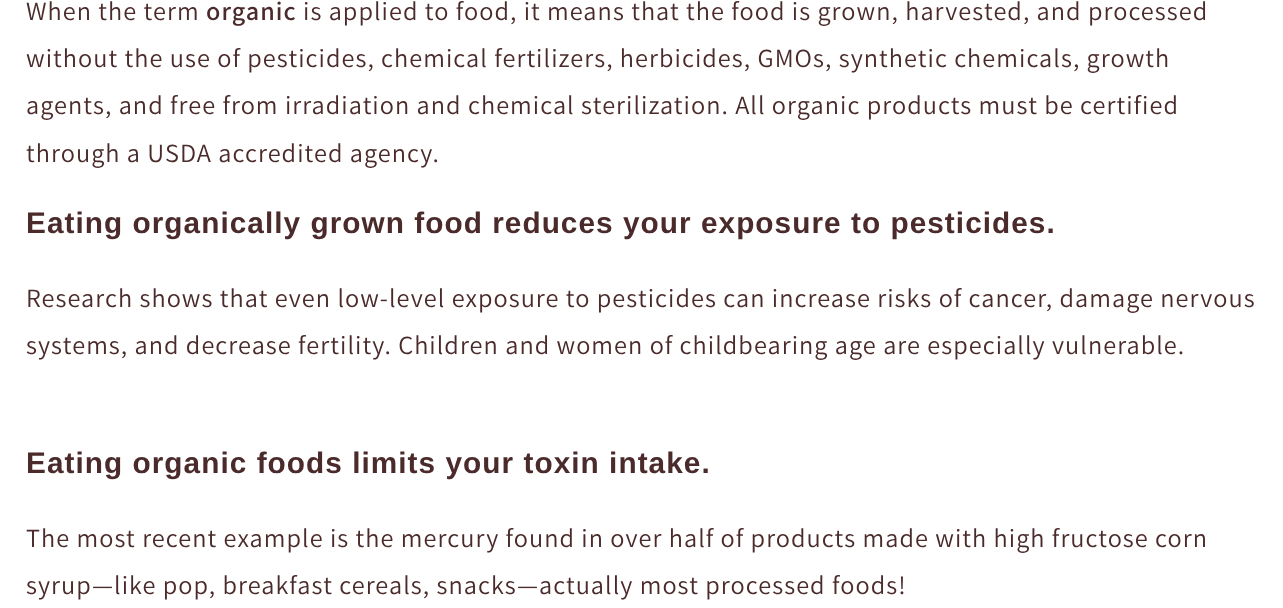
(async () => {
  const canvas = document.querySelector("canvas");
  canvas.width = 1283;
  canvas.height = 608;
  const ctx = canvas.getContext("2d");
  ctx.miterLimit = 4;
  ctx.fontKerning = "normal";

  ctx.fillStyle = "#ffffff";
  ctx.fillRect(0, 0, 1283, 608);
  ctx.letterSpacing = "1.05px";
  ctx.font = "26.25px Assistant";
  ctx.fillStyle = "#4a2a2a";
  ctx.fillText("When the term", 26, 20);
  ctx.font = "600 26.25px Assistant";
  ctx.fillText("organic", 206, 20);
  ctx.font = "26.25px Assistant";
  for (const [text, x, y] of [
    ["is applied to food, it means that the food is grown, harvested, and processed", 303, 20],
    ["without the use of pesticides, chemical fertilizers, herbicides, GMOs, synthetic chemicals, growth", 26, 67],
    ["agents, and free from irradiation and chemical sterilization. All organic products must be certified", 26, 114],
    ["through a USDA accredited agency.", 26, 162],
  ]) {
    ctx.fillText(text, x, y);
  }
  ctx.font = "bold 29.75px Liberation Sans";
  ctx.fillText("Eating organically grown food reduces your exposure to pesticides.", 26, 233);
  ctx.font = "26.25px Assistant";
  ctx.fillText("Research shows that even low-level exposure to pesticides can increase risks of cancer, damage nervous", 26, 307);
  ctx.fillText("systems, and decrease fertility. Children and women of childbearing age are especially vulnerable.", 26, 354);
  ctx.font = "bold 29.75px Liberation Sans";
  ctx.fillText("Eating organic foods limits your toxin intake.", 26, 473);
  ctx.font = "26.25px Assistant";
  ctx.fillText("The most recent example is the mercury found in over half of products made with high fructose corn", 26, 547);
  ctx.fillText("syrup—like pop, breakfast cereals, snacks—actually most processed foods!", 26, 594);
})();
